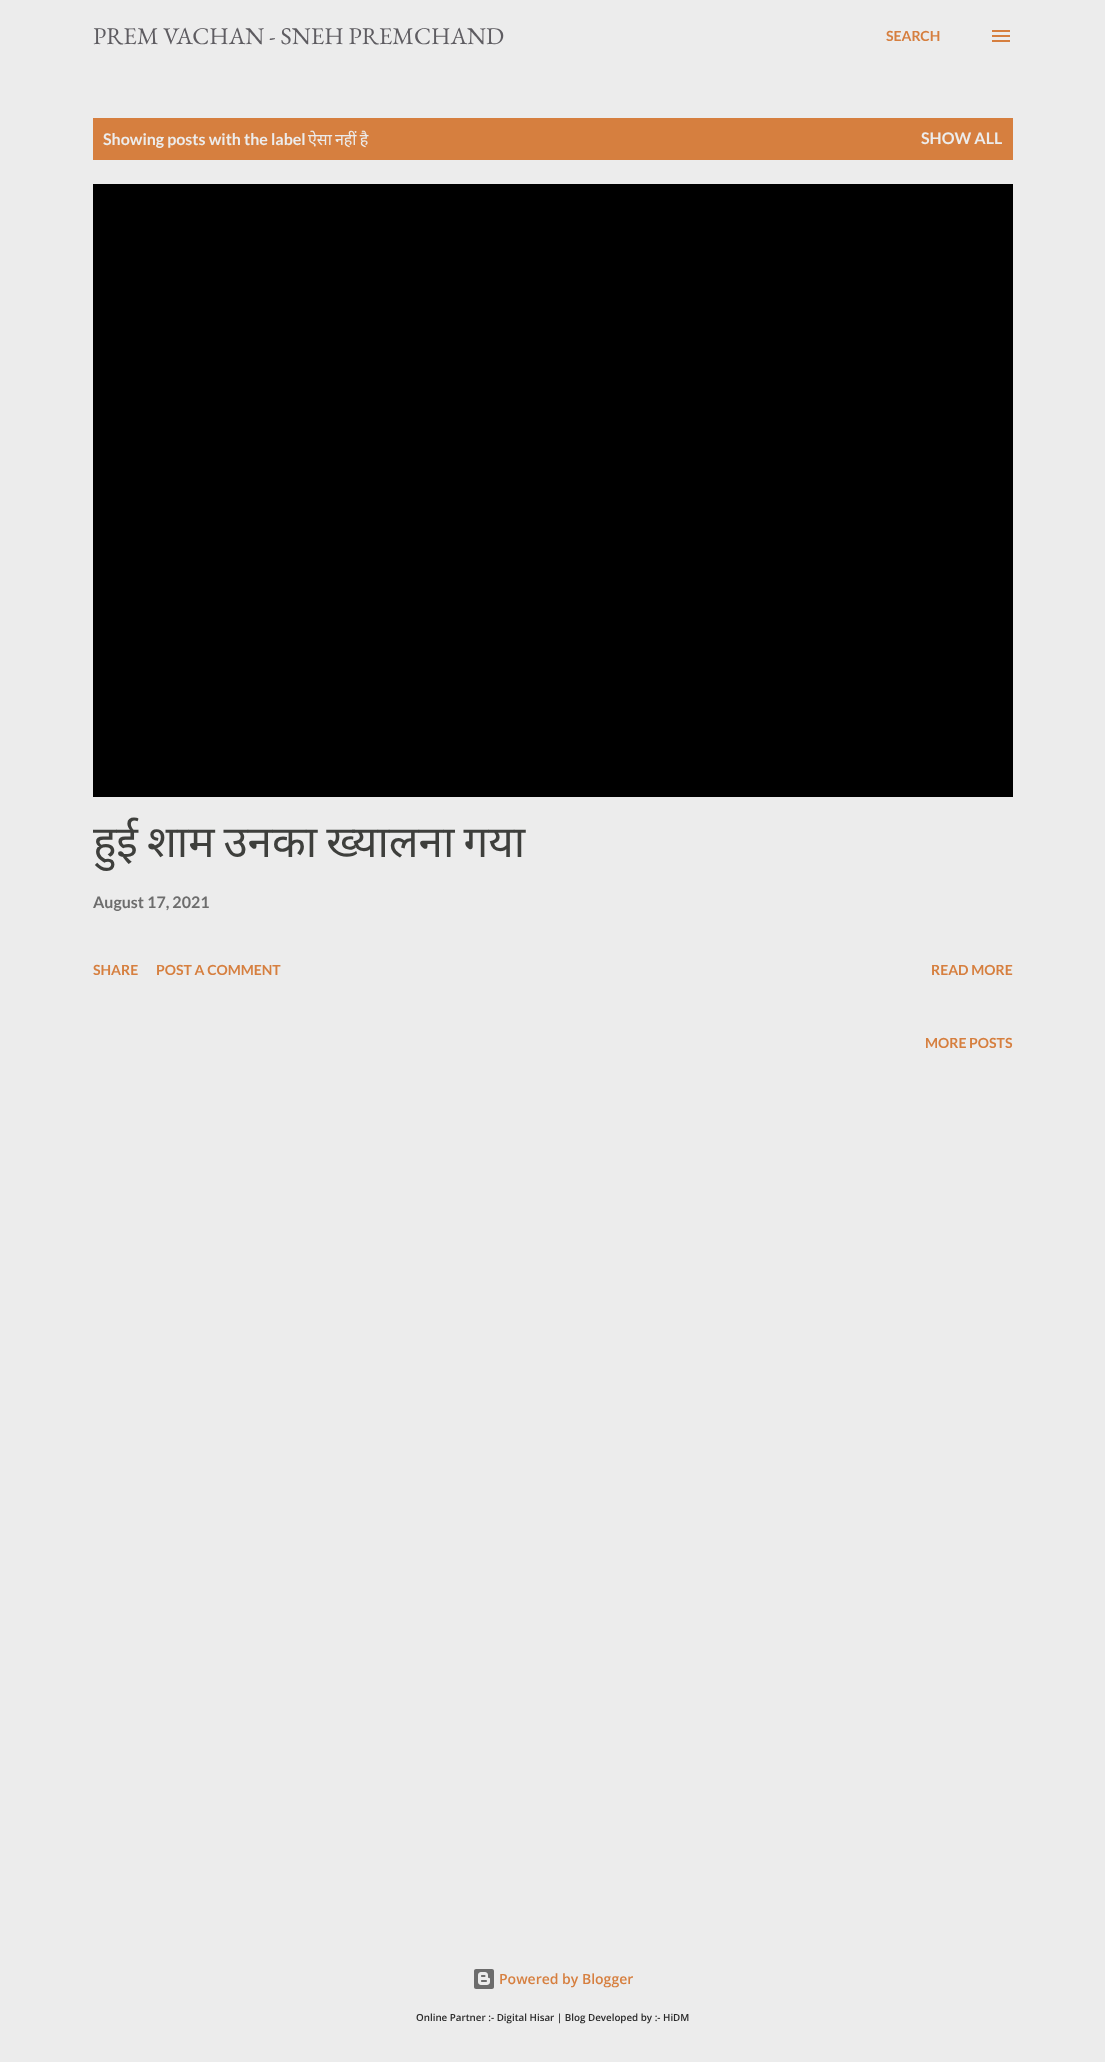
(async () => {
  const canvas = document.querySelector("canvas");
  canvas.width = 1105;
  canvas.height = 2062;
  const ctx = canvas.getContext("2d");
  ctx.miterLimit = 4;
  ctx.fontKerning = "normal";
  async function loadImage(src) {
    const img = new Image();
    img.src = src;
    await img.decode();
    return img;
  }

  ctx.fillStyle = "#ececec";
  ctx.fillRect(0, 0, 1105, 2062);
  ctx.drawImage(await loadImage("img/1.png"), 992, 30, 18, 12);
  ctx.fillStyle = "#d67f3f";
  ctx.fillRect(93, 118, 920, 42);
  ctx.fillStyle = "#000000";
  ctx.fillRect(93, 184, 920, 613);
  ctx.drawImage(await loadImage("img/2.png"), 474, 1969, 20, 20);
  ctx.font = "24px EB Garamond";
  ctx.fillStyle = "#5e5c61";
  ctx.fillText("PREM VACHAN - SNEH PREMCHAND", 93, 44);
  ctx.font = "bold 14px Lato";
  ctx.fillStyle = "#d67f3f";
  ctx.fillText("SEARCH", 886, 41);
  ctx.font = "bold 16px Lato";
  ctx.fillStyle = "#ececec";
  ctx.fillText("Showing posts with the label", 103, 145);
  ctx.wordSpacing = "-1px";
  ctx.font = "16px Noto Sans";
  ctx.fillText("ऐसा नहीं है", 308, 145);
  ctx.wordSpacing = "0px";
  ctx.font = "bold 16px Lato";
  ctx.fillText("SHOW ALL", 921, 144);
  ctx.wordSpacing = "-2.5px";
  ctx.font = "44px Noto Sans";
  ctx.fillStyle = "#3e3f3c";
  ctx.fillText("हुई शाम उनका ख्यालना गया", 93, 857);
  ctx.wordSpacing = "0px";
  ctx.font = "bold 16px Lato";
  ctx.fillStyle = "#6d6d6d";
  ctx.fillText("August 17, 2021", 93, 908);
  ctx.font = "bold 14px Lato";
  ctx.fillStyle = "#d67f3f";
  for (const [text, x, y] of [
    ["SHARE", 93, 975],
    ["POST A COMMENT", 156, 975],
    ["READ MORE", 931, 975],
    ["MORE POSTS", 925, 1048],
  ]) {
    ctx.fillText(text, x, y);
  }
  ctx.font = "600 14px Open Sans";
  ctx.fillText("Powered by Blogger", 499, 1984);
  ctx.font = "600 9.8px Open Sans";
  ctx.fillStyle = "#292929";
  ctx.fillText("Online Partner :- Digital Hisar | Blog Developed by :- HiDM", 416, 2021);
})();
